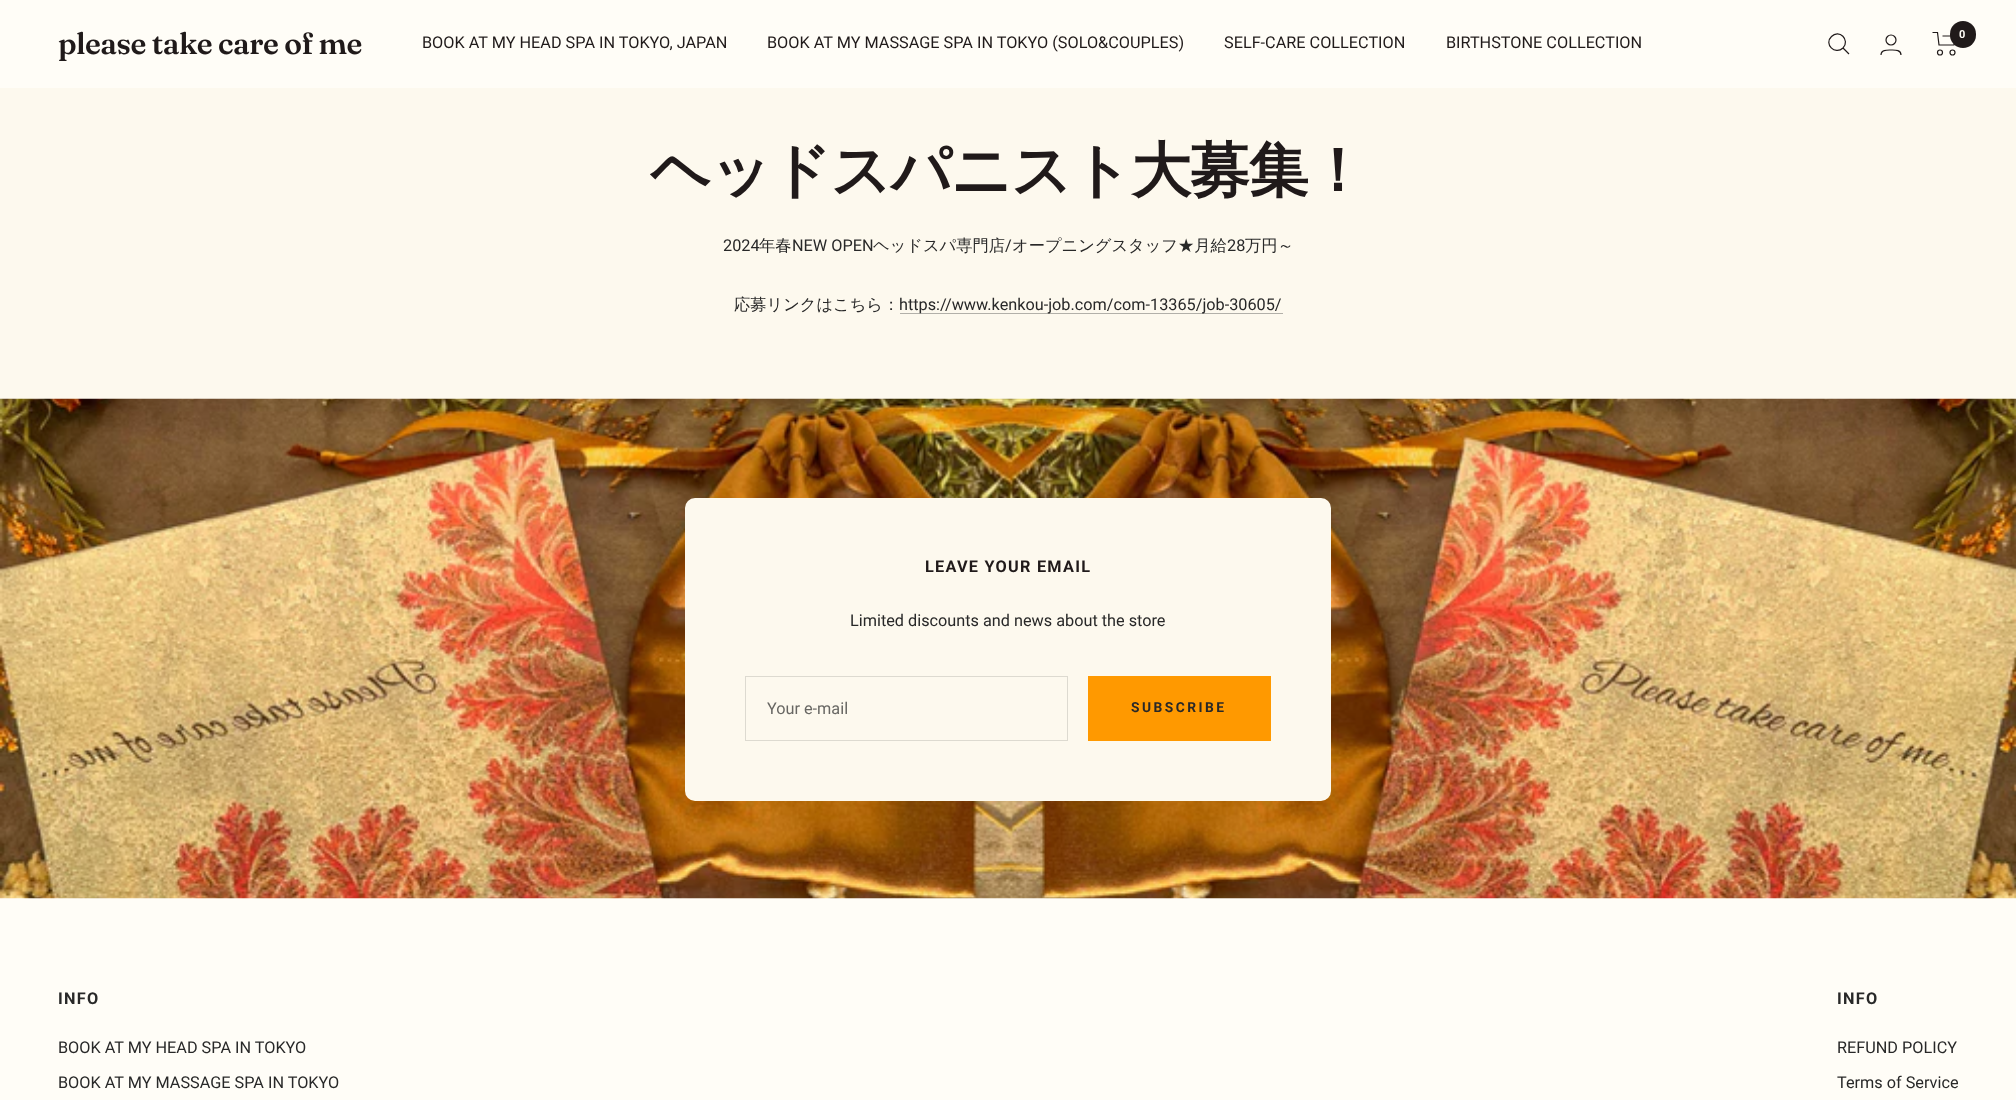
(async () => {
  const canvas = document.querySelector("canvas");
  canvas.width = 2016;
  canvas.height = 1100;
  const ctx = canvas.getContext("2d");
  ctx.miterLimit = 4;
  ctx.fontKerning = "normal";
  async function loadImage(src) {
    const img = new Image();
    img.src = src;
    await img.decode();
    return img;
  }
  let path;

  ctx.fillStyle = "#fdf9ee";
  ctx.fillRect(0, 0, 2016, 1100);
  ctx.fillStyle = "#fffdf7";
  ctx.fillRect(0, 0, 2016, 88);
  path = new Path2D("M1843 48C1850.5 40 1839 28.5 1831.5 36.5C1823.5 44 1835 55.5 1843 48ZM1843 48L1849 54");
  ctx.strokeStyle = "#201a1a";
  ctx.lineWidth = 1.2;
  ctx.stroke(path);
  ctx.beginPath();
  ctx.arc(1891, 40, 5, 0, Math.PI * 2);
  ctx.stroke();
  path = new Path2D("M1881 55C1881 49.5 1887.5 50 1891 50C1895 50 1901 49.5 1901 55");
  ctx.stroke(path);
  path = new Path2D("M1932.5 32.5H1937.5L1939 45H1954L1956 36H1942.5");
  ctx.stroke(path);
  ctx.beginPath();
  ctx.arc(1940, 52.5, 2.5, 0, Math.PI * 2);
  ctx.stroke();
  ctx.beginPath();
  ctx.arc(1952.5, 52.5, 2.5, 0, Math.PI * 2);
  ctx.stroke();
  ctx.fillStyle = "#201a1a";
  ctx.beginPath();
  ctx.roundRect(1950, 21, 26, 27, 13);
  ctx.fill();
  ctx.fillStyle = "#b2b0a9";
  ctx.fillRect(900, 313, 383, 1);
  ctx.fillStyle = "#fffdf7";
  ctx.fillRect(0, 898, 2016, 202);
  ctx.drawImage(await loadImage("img/1.png"), 0, 398, 2016, 501);
  ctx.fillStyle = "#fdf9ee";
  ctx.beginPath();
  ctx.roundRect(685, 498, 646, 303, 10);
  ctx.fill();
  ctx.strokeStyle = "#dddad0";
  ctx.lineWidth = 1;
  ctx.strokeRect(745.5, 676.5, 322, 64);
  ctx.fillStyle = "#ff9900";
  ctx.fillRect(1088, 676, 183, 65);
  ctx.letterSpacing = "-0.5px";
  ctx.font = "600 30px Fraunces";
  ctx.fillStyle = "#201a1a";
  ctx.fillText("please take care of me", 58, 54);
  ctx.letterSpacing = "0px";
  ctx.font = "16.25px Roboto";
  for (const [text, x, y] of [
    ["BOOK AT MY HEAD SPA IN TOKYO, JAPAN", 422, 48],
    ["BOOK AT MY MASSAGE SPA IN TOKYO (SOLO&COUPLES)", 767, 48],
    ["SELF-CARE COLLECTION", 1224, 48],
    ["BIRTHSTONE COLLECTION", 1446, 48],
  ]) {
    ctx.fillText(text, x, y);
  }
  ctx.font = "bold 11px Roboto";
  ctx.fillStyle = "#fffdf7";
  ctx.fillText("0", 1959, 38);
  ctx.letterSpacing = "-1.25px";
  ctx.font = "bold 60px WenQuanYi Zen Hei";
  ctx.fillStyle = "#201a1a";
  ctx.fillText("ヘッドスパニスト大募集！", 650, 191);
  ctx.letterSpacing = "0px";
  ctx.font = "16.25px Roboto";
  ctx.fillStyle = "#282828";
  ctx.fillText("2024", 723, 251);
  ctx.font = "500 16.25px WenQuanYi Zen Hei";
  ctx.fillText("年春", 759, 251);
  ctx.font = "16.25px Roboto";
  ctx.fillText("NEW OPEN", 792, 251);
  ctx.font = "500 16.25px WenQuanYi Zen Hei";
  ctx.fillText("ヘッドスパ専門店", 873, 251);
  ctx.font = "16.25px Roboto";
  ctx.fillText("/", 1005, 251);
  ctx.font = "500 16.25px WenQuanYi Zen Hei";
  ctx.fillText("オープニングスタッフ★月給", 1012, 251);
  ctx.font = "16.25px Roboto";
  ctx.fillText("28", 1227, 251);
  ctx.font = "500 16.25px WenQuanYi Zen Hei";
  ctx.fillText("万円～", 1245, 251);
  ctx.fillText("応募リンクはこちら：", 734, 310);
  ctx.font = "16.25px Roboto";
  ctx.fillText("https://www.kenkou-job.com/com-13365/job-30605/", 899, 310);
  ctx.letterSpacing = "1.25px";
  ctx.font = "bold 16.25px Roboto";
  ctx.fillStyle = "#201a1a";
  ctx.fillText("LEAVE YOUR EMAIL", 925, 572);
  ctx.letterSpacing = "0px";
  ctx.font = "16.25px Roboto";
  ctx.fillStyle = "#282828";
  ctx.fillText("Limited discounts and news about the store", 850, 626);
  ctx.fillStyle = "#686763";
  ctx.fillText("Your e-mail", 767, 714);
  ctx.letterSpacing = "2.5px";
  ctx.font = "bold 13.75px Roboto";
  ctx.fillStyle = "#282828";
  ctx.fillText("SUBSCRIBE", 1131, 712);
  ctx.letterSpacing = "1.25px";
  ctx.font = "bold 16.25px Roboto";
  ctx.fillText("INFO", 58, 1004);
  ctx.letterSpacing = "0px";
  ctx.font = "16.25px Roboto";
  ctx.fillText("BOOK AT MY HEAD SPA IN TOKYO", 58, 1053);
  ctx.fillText("BOOK AT MY MASSAGE SPA IN TOKYO", 58, 1088);
  ctx.letterSpacing = "1.25px";
  ctx.font = "bold 16.25px Roboto";
  ctx.fillText("INFO", 1837, 1004);
  ctx.letterSpacing = "0px";
  ctx.font = "16.25px Roboto";
  ctx.fillText("REFUND POLICY", 1837, 1053);
  ctx.fillText("Terms of Service", 1837, 1088);
})();
